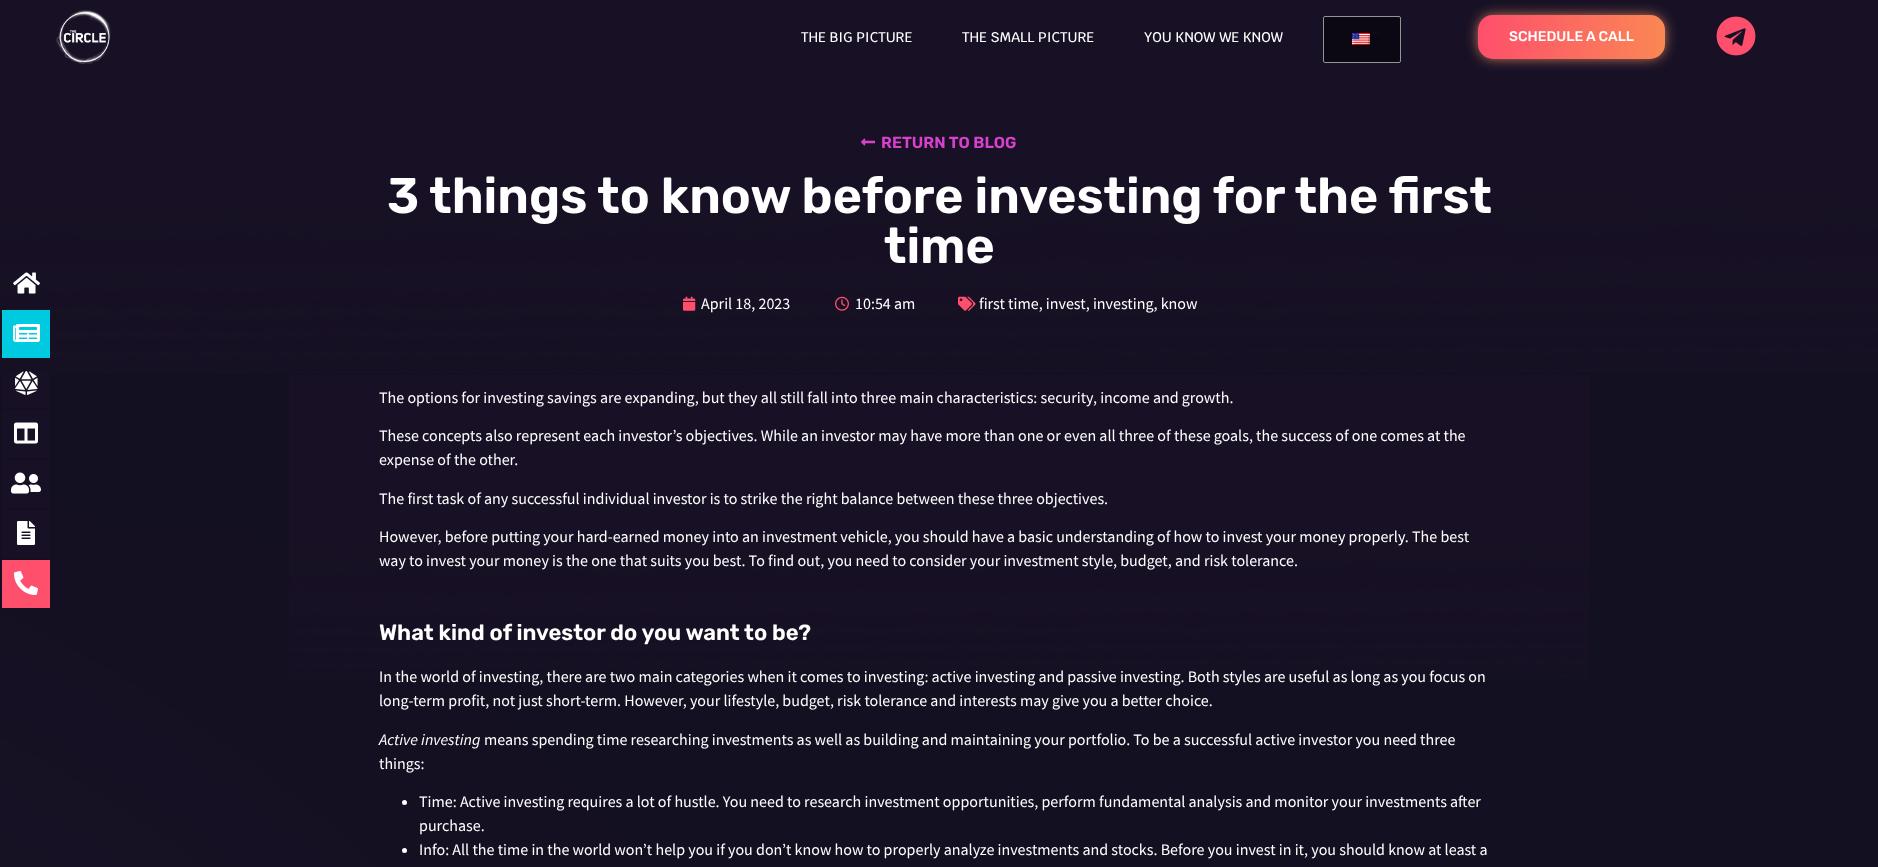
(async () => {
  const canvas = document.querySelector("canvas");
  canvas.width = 1878;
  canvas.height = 867;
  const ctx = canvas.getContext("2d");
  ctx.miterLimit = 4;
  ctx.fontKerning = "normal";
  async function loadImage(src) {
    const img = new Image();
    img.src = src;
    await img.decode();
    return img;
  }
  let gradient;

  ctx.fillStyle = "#ffffff";
  ctx.fillRect(0, 0, 1878, 867);
  ctx.drawImage(await loadImage("img/12.png"), 0, 165, 1878, 702);
  ctx.drawImage(await loadImage("img/13.png"), 0, 0, 1878, 373);
  ctx.drawImage(await loadImage("img/1.png"), 56, 10, 55, 54);
  ctx.fillStyle = "#0c0813";
  ctx.beginPath();
  ctx.roundRect(1323, 16, 78, 47, 2);
  ctx.fill();
  ctx.drawImage(await loadImage("img/2.png"), 1372, 37, 8, 4);
  ctx.beginPath();
  ctx.roundRect(1323.5, 16.5, 77, 46, 1.5);
  ctx.strokeStyle = "#949494";
  ctx.stroke();
  ctx.drawImage(await loadImage("img/3.png"), 1352, 33, 18, 12);
  ctx.fillStyle = "#fd9769";
  ctx.filter = "blur(7px)";
  ctx.beginPath();
  ctx.roundRect(1480, 17, 183, 40, 13);
  ctx.fill();
  ctx.filter = "none";
  gradient = ctx.createLinearGradient(1478, 37, 1665, 37);
  gradient.addColorStop(0, "#fe4f6c");
  gradient.addColorStop(1, "#fa8754");
  ctx.fillStyle = gradient;
  ctx.beginPath();
  ctx.roundRect(1478, 15, 187, 44, 15);
  ctx.fill();
  ctx.drawImage(await loadImage("img/4.png"), 1716, 16, 40, 40);
  ctx.drawImage(await loadImage("img/5.png"), 13, 272, 27, 22);
  ctx.fillStyle = "#00cae0";
  ctx.fillRect(2, 310, 48, 48);
  ctx.drawImage(await loadImage("img/6.png"), 13, 324, 27, 18);
  ctx.fillStyle = "#181125";
  ctx.fillRect(2, 373, 48, 35);
  ctx.drawImage(await loadImage("img/7.png"), 15, 371, 23, 24);
  ctx.fillRect(2, 410, 48, 48);
  ctx.drawImage(await loadImage("img/8.png"), 14, 422, 24, 22);
  ctx.fillRect(2, 460, 48, 48);
  ctx.drawImage(await loadImage("img/9.png"), 11, 472, 30, 22);
  ctx.fillRect(2, 510, 48, 48);
  ctx.drawImage(await loadImage("img/10.png"), 17, 521, 18, 24);
  ctx.fillStyle = "#fe506c";
  ctx.fillRect(2, 560, 48, 48);
  ctx.drawImage(await loadImage("img/11.png"), 14, 571, 24, 24);
  ctx.drawImage(await loadImage("img/14.png"), 861, 138, 15, 8);
  ctx.drawImage(await loadImage("img/15.png"), 683, 296, 13, 15);
  ctx.drawImage(await loadImage("img/16.png"), 835, 296, 14, 15);
  ctx.drawImage(await loadImage("img/17.png"), 958, 296, 18, 15);
  ctx.drawImage(await loadImage("img/18.png"), 289, 375, 1300, 304);
  ctx.fillStyle = "#ffffff";
  ctx.beginPath();
  ctx.arc(404.5, 802.5, 2.5, 0, Math.PI * 2);
  ctx.fill();
  ctx.beginPath();
  ctx.arc(404.5, 850.5, 2.5, 0, Math.PI * 2);
  ctx.fill();
  ctx.font = "500 14px Krub";
  for (const [text, x, y] of [
    ["THE BIG PICTURE", 801, 42],
    ["THE SMALL PICTURE", 962, 42],
    ["YOU KNOW WE KNOW", 1144, 42],
  ]) {
    ctx.fillText(text, x, y);
  }
  ctx.font = "500 14px Rubik";
  ctx.fillText("SCHEDULE A CALL", 1509, 41);
  ctx.font = "600 16px Rubik";
  ctx.fillStyle = "#d941cd";
  ctx.fillText("RETURN TO BLOG", 881, 148);
  ctx.font = "600 50px Rubik";
  ctx.fillStyle = "#ffffff";
  ctx.fillText("3 things to know before investing for the first", 387, 213);
  ctx.fillText("time", 884, 263);
  ctx.font = "16px Source Sans Pro";
  for (const [text, x, y] of [
    ["April 18, 2023", 701, 309],
    ["10:54 am", 855, 309],
    ["first time, invest, investing, know", 979, 309],
    ["The options for investing savings are expanding, but they all still fall into three main characteristics: security, income and growth.", 379, 403],
    ["These concepts also represent each investor’s objectives. While an investor may have more than one or even all three of these goals, the success of one comes at the", 379, 441],
    ["expense of the other.", 379, 465],
    ["The first task of any successful individual investor is to strike the right balance between these three objectives.", 379, 504],
    ["However, before putting your hard-earned money into an investment vehicle, you should have a basic understanding of how to invest your money properly. The best", 379, 542],
    ["way to invest your money is the one that suits you best. To find out, you need to consider your investment style, budget, and risk tolerance.", 379, 566],
  ]) {
    ctx.fillText(text, x, y);
  }
  ctx.font = "600 22px Rubik";
  ctx.fillText("What kind of investor do you want to be?", 379, 640);
  ctx.font = "16px Source Sans Pro";
  ctx.fillText("In the world of investing, there are two main categories when it comes to investing: active investing and passive investing. Both styles are useful as long as you focus on", 379, 682);
  ctx.fillText("long-term profit, not just short-term. However, your lifestyle, budget, risk tolerance and interests may give you a better choice.", 379, 706);
  ctx.font = "italic 16px Source Sans Pro";
  ctx.fillText("Active investing", 379, 745);
  ctx.font = "16px Source Sans Pro";
  for (const [text, x, y] of [
    ["means spending time researching investments as well as building and maintaining your portfolio. To be a successful active investor you need three", 484, 745],
    ["things:", 379, 769],
    ["Time: Active investing requires a lot of hustle. You need to research investment opportunities, perform fundamental analysis and monitor your investments after", 419, 807],
    ["purchase.", 419, 831],
    ["Info: All the time in the world won’t help you if you don’t know how to properly analyze investments and stocks. Before you invest in it, you should know at least a", 419, 855],
  ]) {
    ctx.fillText(text, x, y);
  }
})();
